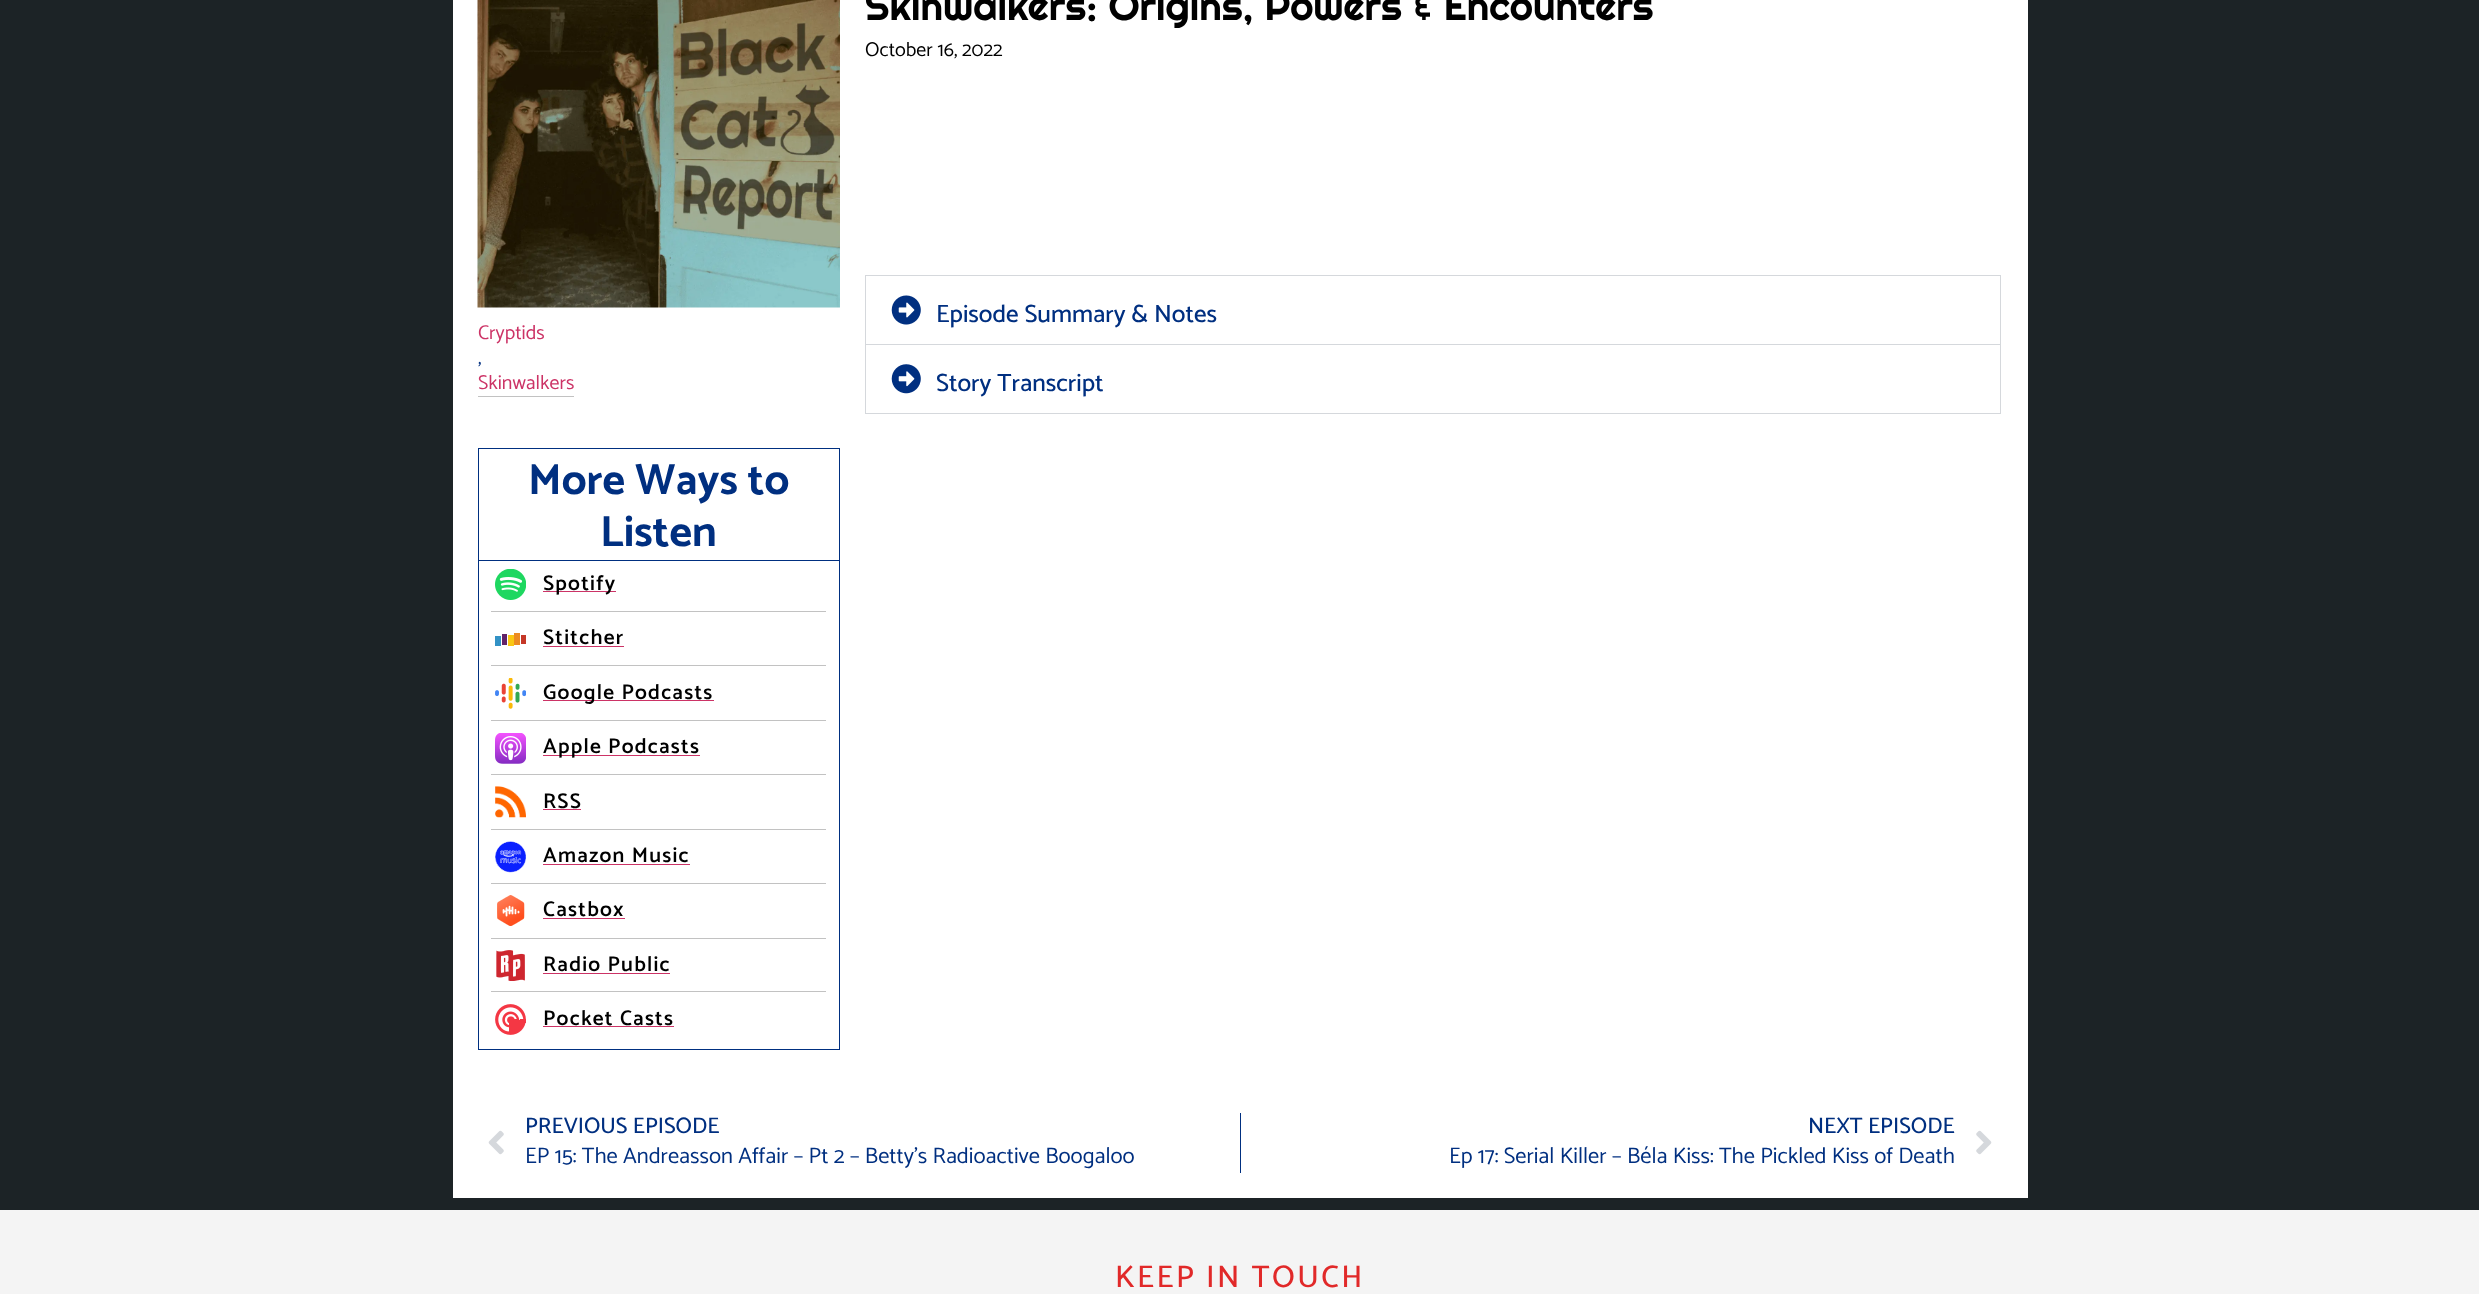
(async () => {
  const canvas = document.querySelector("canvas");
  canvas.width = 2479;
  canvas.height = 1294;
  const ctx = canvas.getContext("2d");
  ctx.miterLimit = 4;
  ctx.fontKerning = "normal";
  async function loadImage(src) {
    const img = new Image();
    img.src = src;
    await img.decode();
    return img;
  }

  ctx.fillStyle = "#1c2326";
  ctx.fillRect(0, 0, 2479, 1294);
  ctx.fillStyle = "#ffffff";
  ctx.fillRect(453, 0, 1575, 1198);
  ctx.strokeStyle = "#d5d8dc";
  ctx.strokeRect(865.5, 275.5, 1135, 69);
  ctx.drawImage(await loadImage("img/1.png"), 891, 295, 30, 30);
  for (const [x, y, w, h, color] of [
    [2000, 345, 1, 69, "#d5d8dc"],
    [865, 413, 1136, 1, "#d5d8dc"],
    [865, 345, 1, 69, "#d5d8dc"],
  ]) {
    ctx.fillStyle = color;
    ctx.fillRect(x, y, w, h);
  }
  ctx.drawImage(await loadImage("img/2.png"), 891, 364, 30, 30);
  ctx.drawImage(await loadImage("img/3.png"), 477, 0, 363, 308);
  ctx.fillStyle = "#c2c2c2";
  ctx.fillRect(478, 396, 96, 1);
  ctx.strokeStyle = "#002f80";
  ctx.strokeRect(478.5, 448.5, 361, 112);
  for (const [x, y, w, h, color] of [
    [839, 556, 1, 494, "#002f80"],
    [478, 1049, 362, 1, "#002f80"],
    [478, 556, 1, 494, "#002f80"],
  ]) {
    ctx.fillStyle = color;
    ctx.fillRect(x, y, w, h);
  }
  ctx.drawImage(await loadImage("img/4.png"), 495, 569, 31, 31);
  for (const [x, y, w, h, color] of [
    [543, 591, 73, 1, "#cc3366"],
    [491, 611, 335, 1, "#c2c2c2"],
    [495, 636, 6, 10, "#3292c5"],
    [502, 634, 5, 11, "#622368"],
    [508, 635, 6, 11, "#fac714"],
    [514, 633, 6, 12, "#ec8b22"],
    [521, 635, 5, 9, "#c53727"],
    [543, 646, 81, 1, "#cc3366"],
    [491, 665, 335, 1, "#c2c2c2"],
  ]) {
    ctx.fillStyle = color;
    ctx.fillRect(x, y, w, h);
  }
  ctx.drawImage(await loadImage("img/5.png"), 495, 678, 31, 31);
  ctx.fillStyle = "#cc3366";
  ctx.fillRect(543, 700, 171, 1);
  ctx.fillStyle = "#c2c2c2";
  ctx.fillRect(491, 720, 335, 1);
  ctx.drawImage(await loadImage("img/6.png"), 495, 733, 31, 31);
  ctx.fillStyle = "#cc3366";
  ctx.fillRect(543, 755, 157, 1);
  ctx.fillStyle = "#c2c2c2";
  ctx.fillRect(491, 774, 335, 1);
  ctx.drawImage(await loadImage("img/7.png"), 495, 786, 31, 32);
  ctx.fillStyle = "#cc3366";
  ctx.fillRect(543, 809, 38, 1);
  ctx.fillStyle = "#c2c2c2";
  ctx.fillRect(491, 829, 335, 1);
  ctx.drawImage(await loadImage("img/8.png"), 495, 841, 31, 32);
  ctx.fillStyle = "#cc3366";
  ctx.fillRect(543, 864, 147, 1);
  ctx.fillStyle = "#c2c2c2";
  ctx.fillRect(491, 883, 335, 1);
  ctx.drawImage(await loadImage("img/9.png"), 497, 895, 28, 31);
  ctx.fillStyle = "#cc3366";
  ctx.fillRect(543, 918, 82, 1);
  ctx.fillStyle = "#c2c2c2";
  ctx.fillRect(491, 938, 335, 1);
  ctx.drawImage(await loadImage("img/10.png"), 496, 950, 29, 31);
  ctx.fillStyle = "#cc3366";
  ctx.fillRect(543, 973, 127, 1);
  ctx.fillStyle = "#c2c2c2";
  ctx.fillRect(491, 991, 335, 1);
  ctx.drawImage(await loadImage("img/11.png"), 495, 1004, 31, 31);
  ctx.fillStyle = "#cc3366";
  ctx.fillRect(543, 1026, 131, 1);
  ctx.drawImage(await loadImage("img/12.png"), 488, 1130, 16, 25);
  ctx.fillStyle = "#002f80";
  ctx.fillRect(1240, 1113, 1, 60);
  ctx.drawImage(await loadImage("img/13.png"), 1976, 1130, 16, 25);
  ctx.fillStyle = "#f4f4f4";
  ctx.fillRect(0, 1210, 2479, 84);
  ctx.font = "40px Righteous";
  ctx.fillStyle = "#000000";
  ctx.fillText("Skinwalkers: Origins, Powers & Encounters", 865, 20);
  ctx.font = "20px Catamaran";
  ctx.fillText("October 16, 2022", 865, 56);
  ctx.font = "500 25px Catamaran";
  ctx.fillStyle = "#002f80";
  ctx.fillText("Episode Summary & Notes", 936, 322);
  ctx.fillText("Story Transcript", 936, 391);
  ctx.font = "20px Catamaran";
  ctx.fillStyle = "#cc3366";
  ctx.fillText("Cryptids", 478, 339);
  ctx.fillStyle = "#002f80";
  ctx.fillText(",", 478, 364);
  ctx.fillStyle = "#cc3366";
  ctx.fillText("Skinwalkers", 478, 389);
  ctx.font = "bold 43.75px Catamaran";
  ctx.fillStyle = "#002f80";
  ctx.fillText("More Ways to", 528, 494);
  ctx.fillText("Listen", 600, 546);
  ctx.letterSpacing = "1.25px";
  ctx.font = "600 21.25px Catamaran";
  ctx.fillStyle = "#000000";
  for (const [text, x, y] of [
    ["Spotify", 543, 590],
    ["Stitcher", 543, 644],
    ["Google Podcasts", 543, 699],
    ["Apple Podcasts", 543, 753],
    ["RSS", 543, 808],
    ["Amazon Music", 543, 862],
    ["Castbox", 543, 916],
    ["Radio Public", 543, 971],
    ["Pocket Casts", 543, 1025],
  ]) {
    ctx.fillText(text, x, y);
  }
  ctx.letterSpacing = "0px";
  ctx.font = "500 22.5px Catamaran";
  ctx.fillStyle = "#002f80";
  ctx.fillText("PREVIOUS EPISODE", 525, 1133);
  ctx.font = "22.5px Catamaran";
  ctx.fillText("EP 15: The Andreasson Affair – Pt 2 – Betty’s Radioactive Boogaloo", 525, 1163);
  ctx.font = "500 22.5px Catamaran";
  ctx.fillText("NEXT EPISODE", 1808, 1133);
  ctx.font = "22.5px Catamaran";
  ctx.fillText("Ep 17: Serial Killer – Béla Kiss: The Pickled Kiss of Death", 1449, 1163);
  ctx.letterSpacing = "2.5px";
  ctx.font = "500 31.25px Catamaran";
  ctx.fillStyle = "#e12929";
  ctx.fillText("KEEP IN TOUCH", 1115, 1287);
})();
